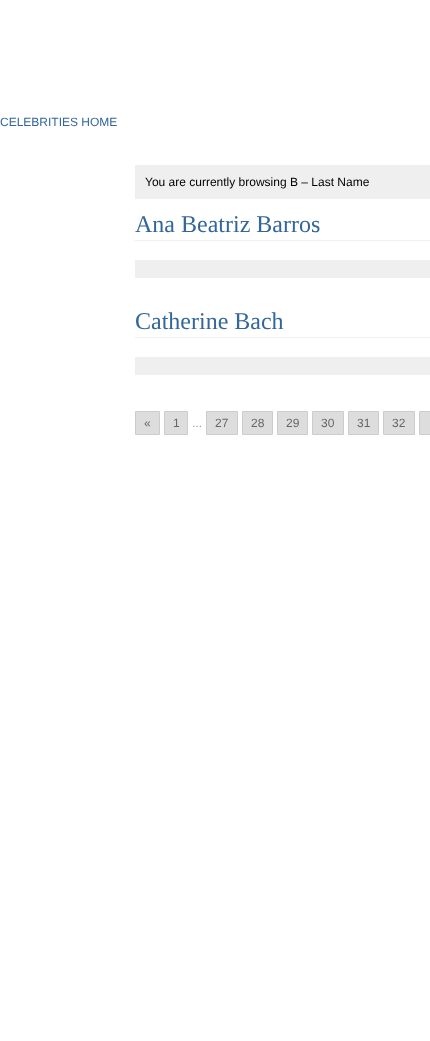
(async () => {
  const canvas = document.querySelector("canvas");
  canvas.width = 430;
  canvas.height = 1041;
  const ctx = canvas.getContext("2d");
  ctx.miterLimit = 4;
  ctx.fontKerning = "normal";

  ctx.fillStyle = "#ffffff";
  ctx.fillRect(0, 0, 430, 1041);
  for (const [x, y, w, h, color] of [
    [135, 165, 295, 34, "#efefef"],
    [135, 240, 295, 1, "#efefef"],
    [135, 260, 295, 18, "#efefef"],
    [135, 337, 295, 1, "#efefef"],
    [135, 357, 295, 18, "#efefef"],
  ]) {
    ctx.fillStyle = color;
    ctx.fillRect(x, y, w, h);
  }
  ctx.fillStyle = "#dddddd";
  ctx.beginPath();
  ctx.rect(135.5, 411.5, 24, 23);
  ctx.fill();
  ctx.strokeStyle = "#cccccc";
  ctx.stroke();
  ctx.beginPath();
  ctx.rect(164.5, 411.5, 23, 23);
  ctx.fill();
  ctx.stroke();
  ctx.beginPath();
  ctx.rect(206.5, 411.5, 31, 23);
  ctx.fill();
  ctx.stroke();
  ctx.beginPath();
  ctx.rect(242.5, 411.5, 30, 23);
  ctx.fill();
  ctx.stroke();
  ctx.beginPath();
  ctx.rect(277.5, 411.5, 30, 23);
  ctx.fill();
  ctx.stroke();
  ctx.beginPath();
  ctx.rect(312.5, 411.5, 31, 23);
  ctx.fill();
  ctx.stroke();
  ctx.beginPath();
  ctx.rect(348.5, 411.5, 30, 23);
  ctx.fill();
  ctx.stroke();
  ctx.beginPath();
  ctx.rect(383.5, 411.5, 31, 23);
  ctx.fill();
  ctx.stroke();
  ctx.beginPath();
  ctx.rect(419.5, 411.5, 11, 23);
  ctx.fill();
  ctx.stroke();
  ctx.font = "12px Liberation Sans";
  ctx.fillStyle = "#336699";
  ctx.fillText("CELEBRITIES HOME", 0, 126);
  ctx.fillStyle = "#000000";
  ctx.fillText("You are currently browsing B – Last Name", 145, 186);
  ctx.font = "24px Liberation Serif";
  ctx.fillStyle = "#336699";
  ctx.fillText("Ana Beatriz Barros", 135, 232);
  ctx.fillText("Catherine Bach", 135, 329);
  ctx.font = "12px Liberation Sans";
  ctx.fillStyle = "#666666";
  ctx.fillText("«", 144, 427);
  ctx.fillText("1", 173, 427);
  ctx.fillStyle = "#999999";
  ctx.fillText("...", 192, 427);
  ctx.fillStyle = "#666666";
  for (const [text, x, y] of [
    ["27", 215, 427],
    ["28", 251, 427],
    ["29", 286, 427],
    ["30", 321, 427],
    ["31", 357, 427],
    ["32", 392, 427],
  ]) {
    ctx.fillText(text, x, y);
  }
})();
